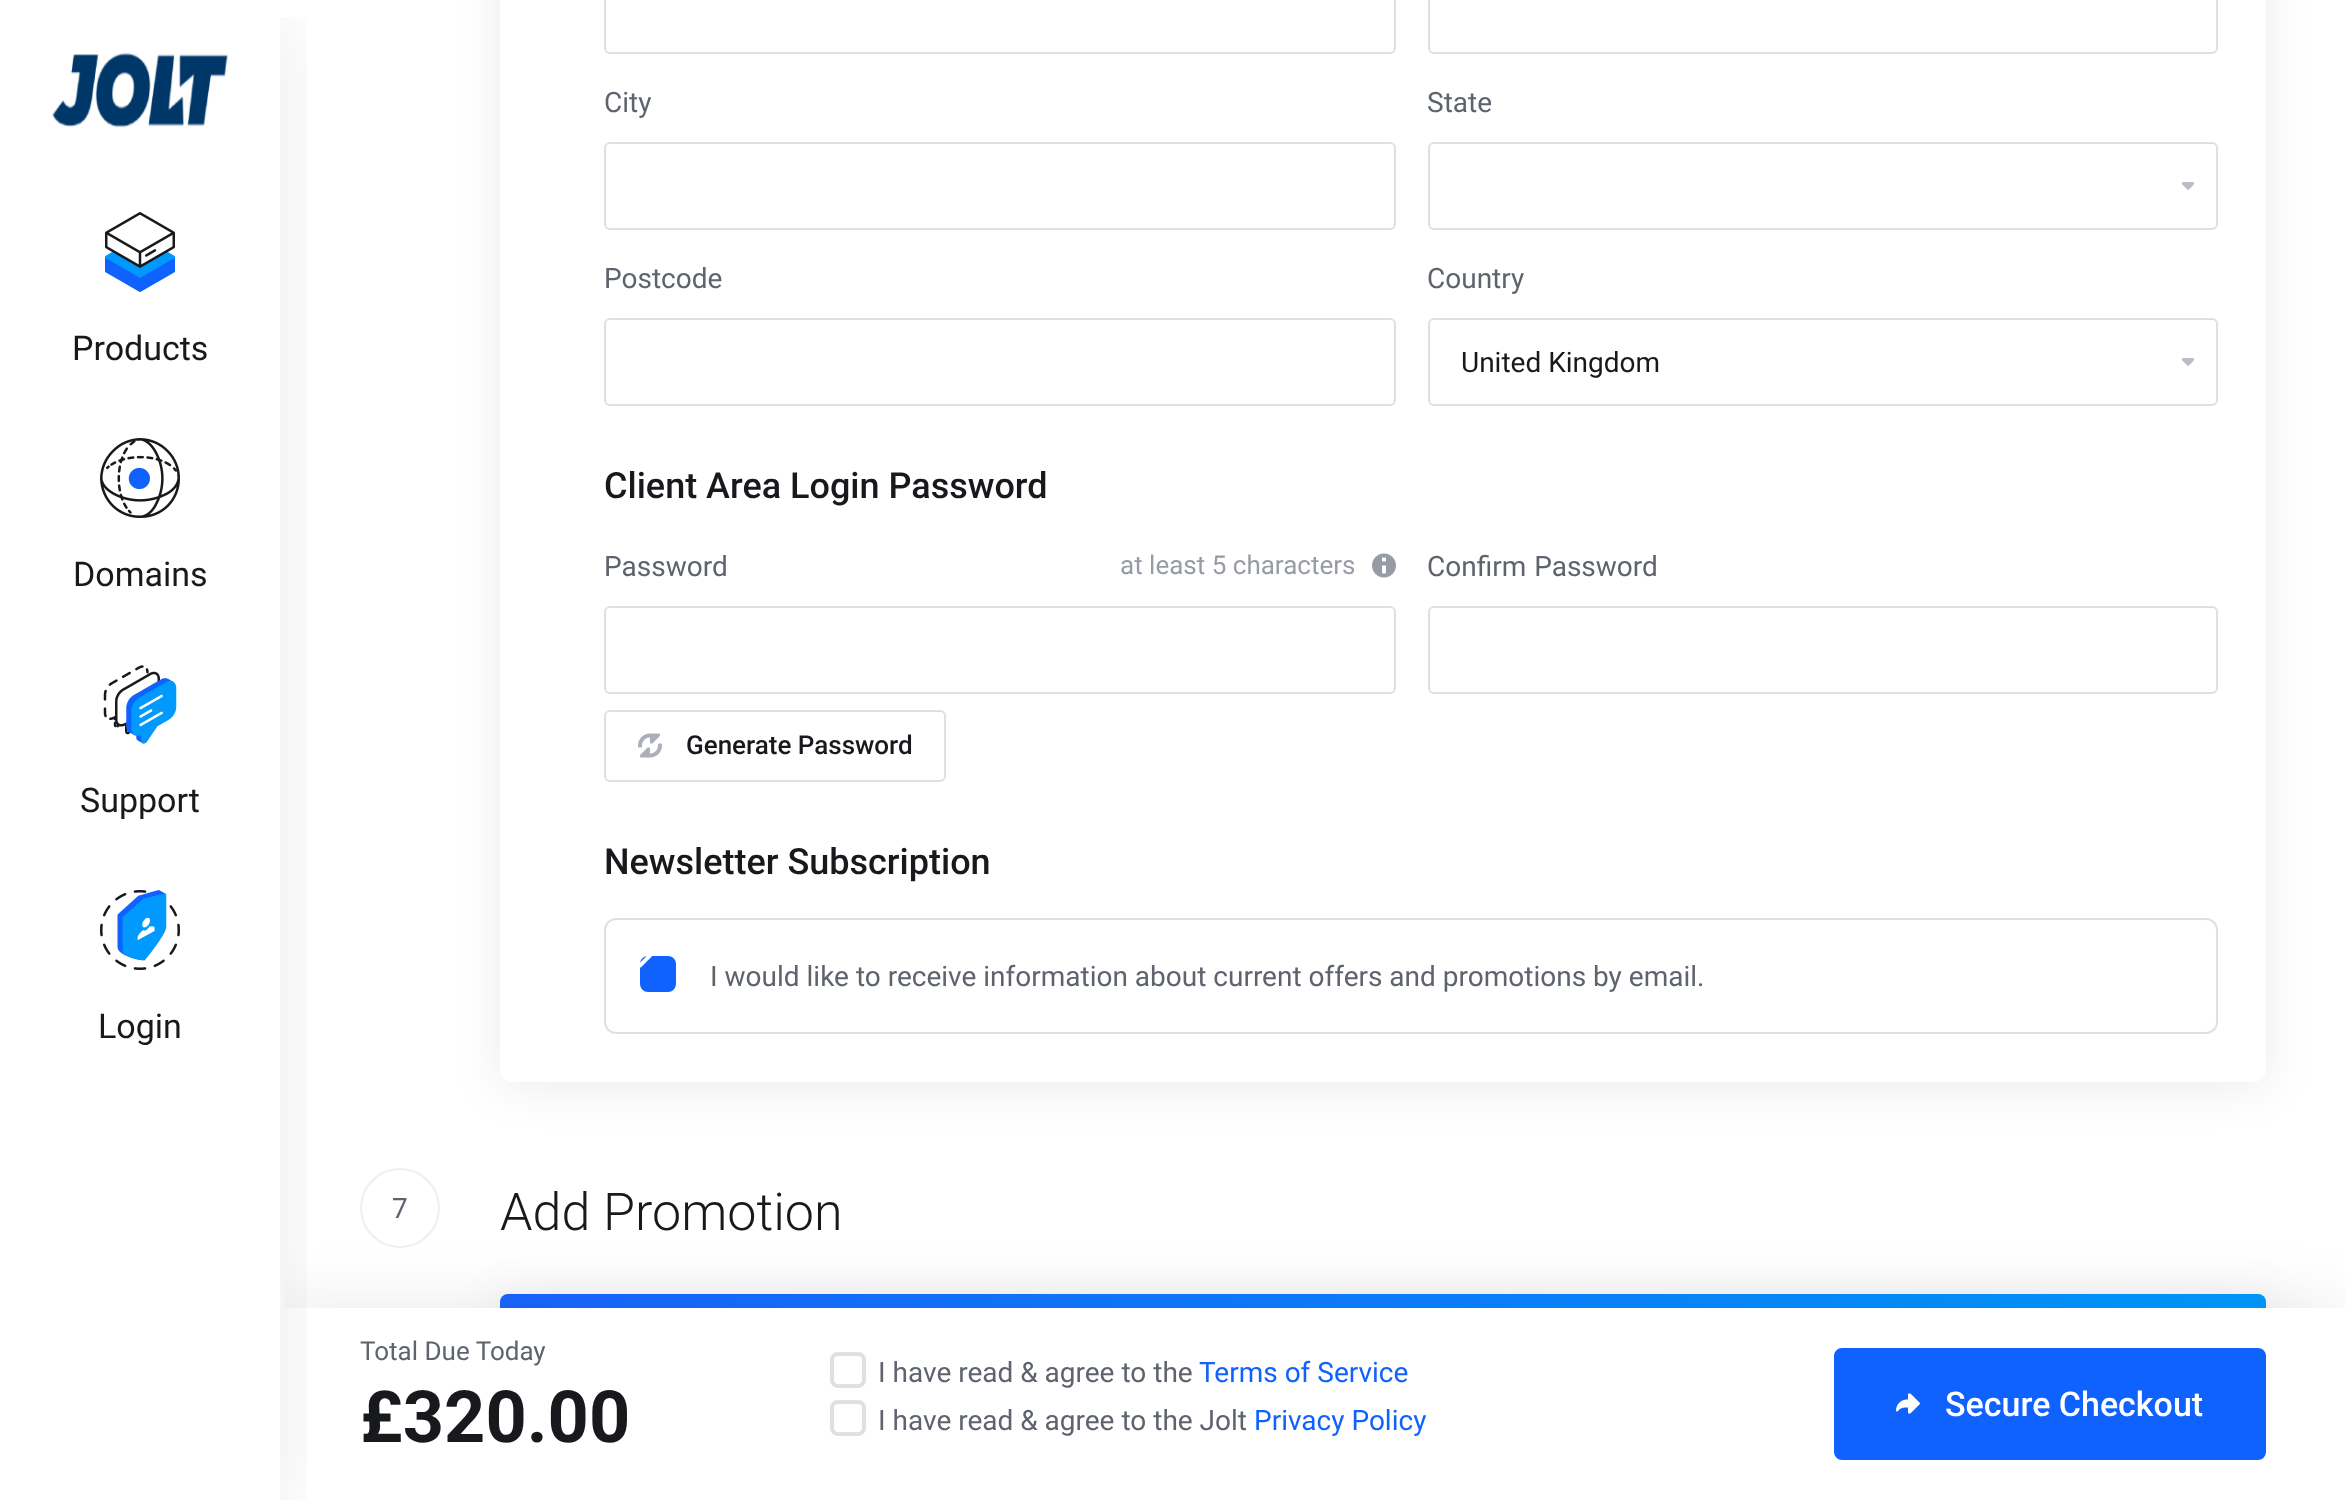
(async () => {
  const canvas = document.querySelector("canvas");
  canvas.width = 2345;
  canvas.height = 1500;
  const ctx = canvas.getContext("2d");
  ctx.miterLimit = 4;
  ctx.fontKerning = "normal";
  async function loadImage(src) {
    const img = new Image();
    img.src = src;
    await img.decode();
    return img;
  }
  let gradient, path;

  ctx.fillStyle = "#ffffff";
  ctx.fillRect(0, 0, 2345, 1500);
  ctx.fillStyle = "rgba(0, 0, 0, 0.08)";
  ctx.filter = "blur(24px)";
  ctx.beginPath();
  ctx.roundRect(500, 1298, 1766, 184, 8);
  ctx.fill();
  ctx.filter = "none";
  ctx.beginPath();
  ctx.arc(400, 1208, 39, 0, Math.PI * 2);
  ctx.strokeStyle = "#efeff1";
  ctx.lineWidth = 2;
  ctx.stroke();
  gradient = ctx.createLinearGradient(500, 1386, 2266, 1386);
  gradient.addColorStop(0, "#1966ff");
  gradient.addColorStop(1, "#009aff");
  ctx.fillStyle = gradient;
  ctx.beginPath();
  ctx.roundRect(500, 1294, 1766, 184, 8);
  ctx.fill();
  ctx.save();
  ctx.beginPath();
  ctx.rect(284, 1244, 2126, 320);
  ctx.clip();
  ctx.fillStyle = "rgba(0, 0, 0, 0.08)";
  ctx.filter = "blur(32px)";
  ctx.beginPath();
  ctx.rect(280, 1304, 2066, 192);
  ctx.fill();
  ctx.filter = "none";
  ctx.restore();
  ctx.fillStyle = "#ffffff";
  ctx.fillRect(284, 1308, 2061, 192);
  ctx.save();
  ctx.beginPath();
  ctx.rect(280, 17, 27, 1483);
  ctx.clip();
  ctx.fillStyle = "rgba(0, 0, 0, 0.08)";
  ctx.filter = "blur(40px)";
  ctx.beginPath();
  ctx.rect(0, 16, 280, 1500);
  ctx.fill();
  ctx.filter = "none";
  ctx.restore();
  ctx.drawImage(await loadImage("img/1.png"), 52, 52, 176, 76);
  ctx.drawImage(await loadImage("img/2.png"), 105, 212, 70, 80);
  ctx.drawImage(await loadImage("img/3.png"), 100, 438, 80, 80);
  ctx.drawImage(await loadImage("img/4.png"), 103, 665, 74, 79);
  ctx.drawImage(await loadImage("img/5.png"), 100, 890, 80, 80);
  ctx.fillStyle = "rgba(0, 0, 0, 0.08)";
  ctx.filter = "blur(24px)";
  ctx.beginPath();
  ctx.roundRect(500, -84, 1766, 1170, 12);
  ctx.fill();
  ctx.filter = "none";
  ctx.fillStyle = "#ffffff";
  path = new Path2D("M500-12H2266V1070C2266 1076.5 2260.5 1082 2254 1082H512C505.5 1082 500 1076.5 500 1070Z");
  ctx.fill(path);
  ctx.beginPath();
  ctx.roundRect(605, -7, 790, 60, 5);
  ctx.strokeStyle = "#dee0e3";
  ctx.stroke();
  ctx.beginPath();
  ctx.roundRect(1429, -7, 788, 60, 5);
  ctx.stroke();
  ctx.beginPath();
  ctx.roundRect(605, 143, 790, 86, 5);
  ctx.stroke();
  ctx.drawImage(await loadImage("img/6.png"), 2182, 182, 12, 8);
  ctx.beginPath();
  ctx.roundRect(1429, 143, 788, 86, 5);
  ctx.stroke();
  ctx.beginPath();
  ctx.roundRect(605, 319, 790, 86, 5);
  ctx.stroke();
  ctx.drawImage(await loadImage("img/6.png"), 2182, 358, 12, 8);
  ctx.beginPath();
  ctx.roundRect(1429, 319, 788, 86, 5);
  ctx.stroke();
  ctx.drawImage(await loadImage("img/7.png"), 1372, 553, 24, 25);
  ctx.beginPath();
  ctx.roundRect(605, 607, 790, 86, 5);
  ctx.stroke();
  ctx.beginPath();
  ctx.roundRect(605, 711, 340, 70, 5);
  ctx.stroke();
  ctx.drawImage(await loadImage("img/8.png"), 638, 733, 24, 25);
  ctx.beginPath();
  ctx.roundRect(1429, 607, 788, 86, 5);
  ctx.stroke();
  ctx.beginPath();
  ctx.roundRect(605, 919, 1612, 114, 11);
  ctx.stroke();
  ctx.fillStyle = "#1062fe";
  ctx.beginPath();
  ctx.roundRect(642, 958, 32, 32, 6);
  ctx.fill();
  ctx.strokeStyle = "#1062fe";
  ctx.lineWidth = 4;
  ctx.stroke();
  ctx.drawImage(await loadImage("img/9.png"), 640, 956, 13, 12);
  ctx.beginPath();
  ctx.roundRect(832, 1354, 32, 32, 6);
  ctx.strokeStyle = "#dee0e3";
  ctx.stroke();
  ctx.beginPath();
  ctx.roundRect(832, 1402, 32, 32, 6);
  ctx.stroke();
  ctx.beginPath();
  ctx.roundRect(1835, 1349, 430, 110, 7);
  ctx.fill();
  ctx.strokeStyle = "#1062fe";
  ctx.lineWidth = 2;
  ctx.stroke();
  ctx.drawImage(await loadImage("img/10.png"), 1896, 1393, 24, 21);
  ctx.font = "34px Roboto";
  ctx.fillStyle = "#17191c";
  for (const [text, x, y] of [
    ["Products", 72, 360],
    ["Domains", 73, 586],
    ["Support", 80, 812],
    ["Login", 98, 1038],
  ]) {
    ctx.fillText(text, x, y);
  }
  ctx.font = "28px Roboto";
  ctx.fillStyle = "#5e636e";
  for (const [text, x, y] of [
    ["City", 604, 112],
    ["State", 1427, 112],
    ["Postcode", 604, 288],
    ["Country", 1427, 288],
  ]) {
    ctx.fillText(text, x, y);
  }
  ctx.fillStyle = "#17191c";
  ctx.fillText("United Kingdom", 1461, 372);
  ctx.font = "500 36px Roboto";
  ctx.fillText("Client Area Login Password", 604, 498);
  ctx.font = "28px Roboto";
  ctx.fillStyle = "#5e636e";
  ctx.fillText("Password", 604, 576);
  ctx.font = "26px Roboto";
  ctx.fillStyle = "#979ba4";
  ctx.fillText("at least 5 characters", 1120, 574);
  ctx.font = "500 26px Roboto";
  ctx.fillStyle = "#17191c";
  ctx.fillText("Generate Password", 686, 754);
  ctx.wordSpacing = "1px";
  ctx.font = "28px Roboto";
  ctx.fillStyle = "#5e636e";
  ctx.fillText("Confirm Password", 1427, 576);
  ctx.wordSpacing = "0px";
  ctx.font = "500 36px Roboto";
  ctx.fillStyle = "#17191c";
  ctx.fillText("Newsletter Subscription", 604, 874);
  ctx.font = "28px Roboto";
  ctx.fillStyle = "#5e636e";
  ctx.fillText("I would like to receive information about current offers and promotions by email.", 710, 986);
  ctx.fillText("7", 392, 1218);
  ctx.font = "300 52px Roboto";
  ctx.fillStyle = "#17191c";
  ctx.fillText("Add Promotion", 500, 1230);
  ctx.font = "26px Roboto";
  ctx.fillStyle = "#5e636e";
  ctx.fillText("Total Due Today", 360, 1360);
  ctx.font = "bold 72px Roboto";
  ctx.fillStyle = "#17191c";
  ctx.fillText("£320.00", 360, 1442);
  ctx.font = "28px Roboto";
  ctx.fillStyle = "#5e636e";
  ctx.fillText("I have read & agree to the", 878, 1382);
  ctx.fillStyle = "#1062fe";
  ctx.fillText("Terms of Service", 1199, 1382);
  ctx.fillStyle = "#5e636e";
  ctx.fillText("I have read & agree to the Jolt", 878, 1430);
  ctx.fillStyle = "#1062fe";
  ctx.fillText("Privacy Policy", 1254, 1430);
  ctx.font = "500 34px Roboto";
  ctx.fillStyle = "#ffffff";
  ctx.fillText("Secure Checkout", 1945, 1416);
})();
